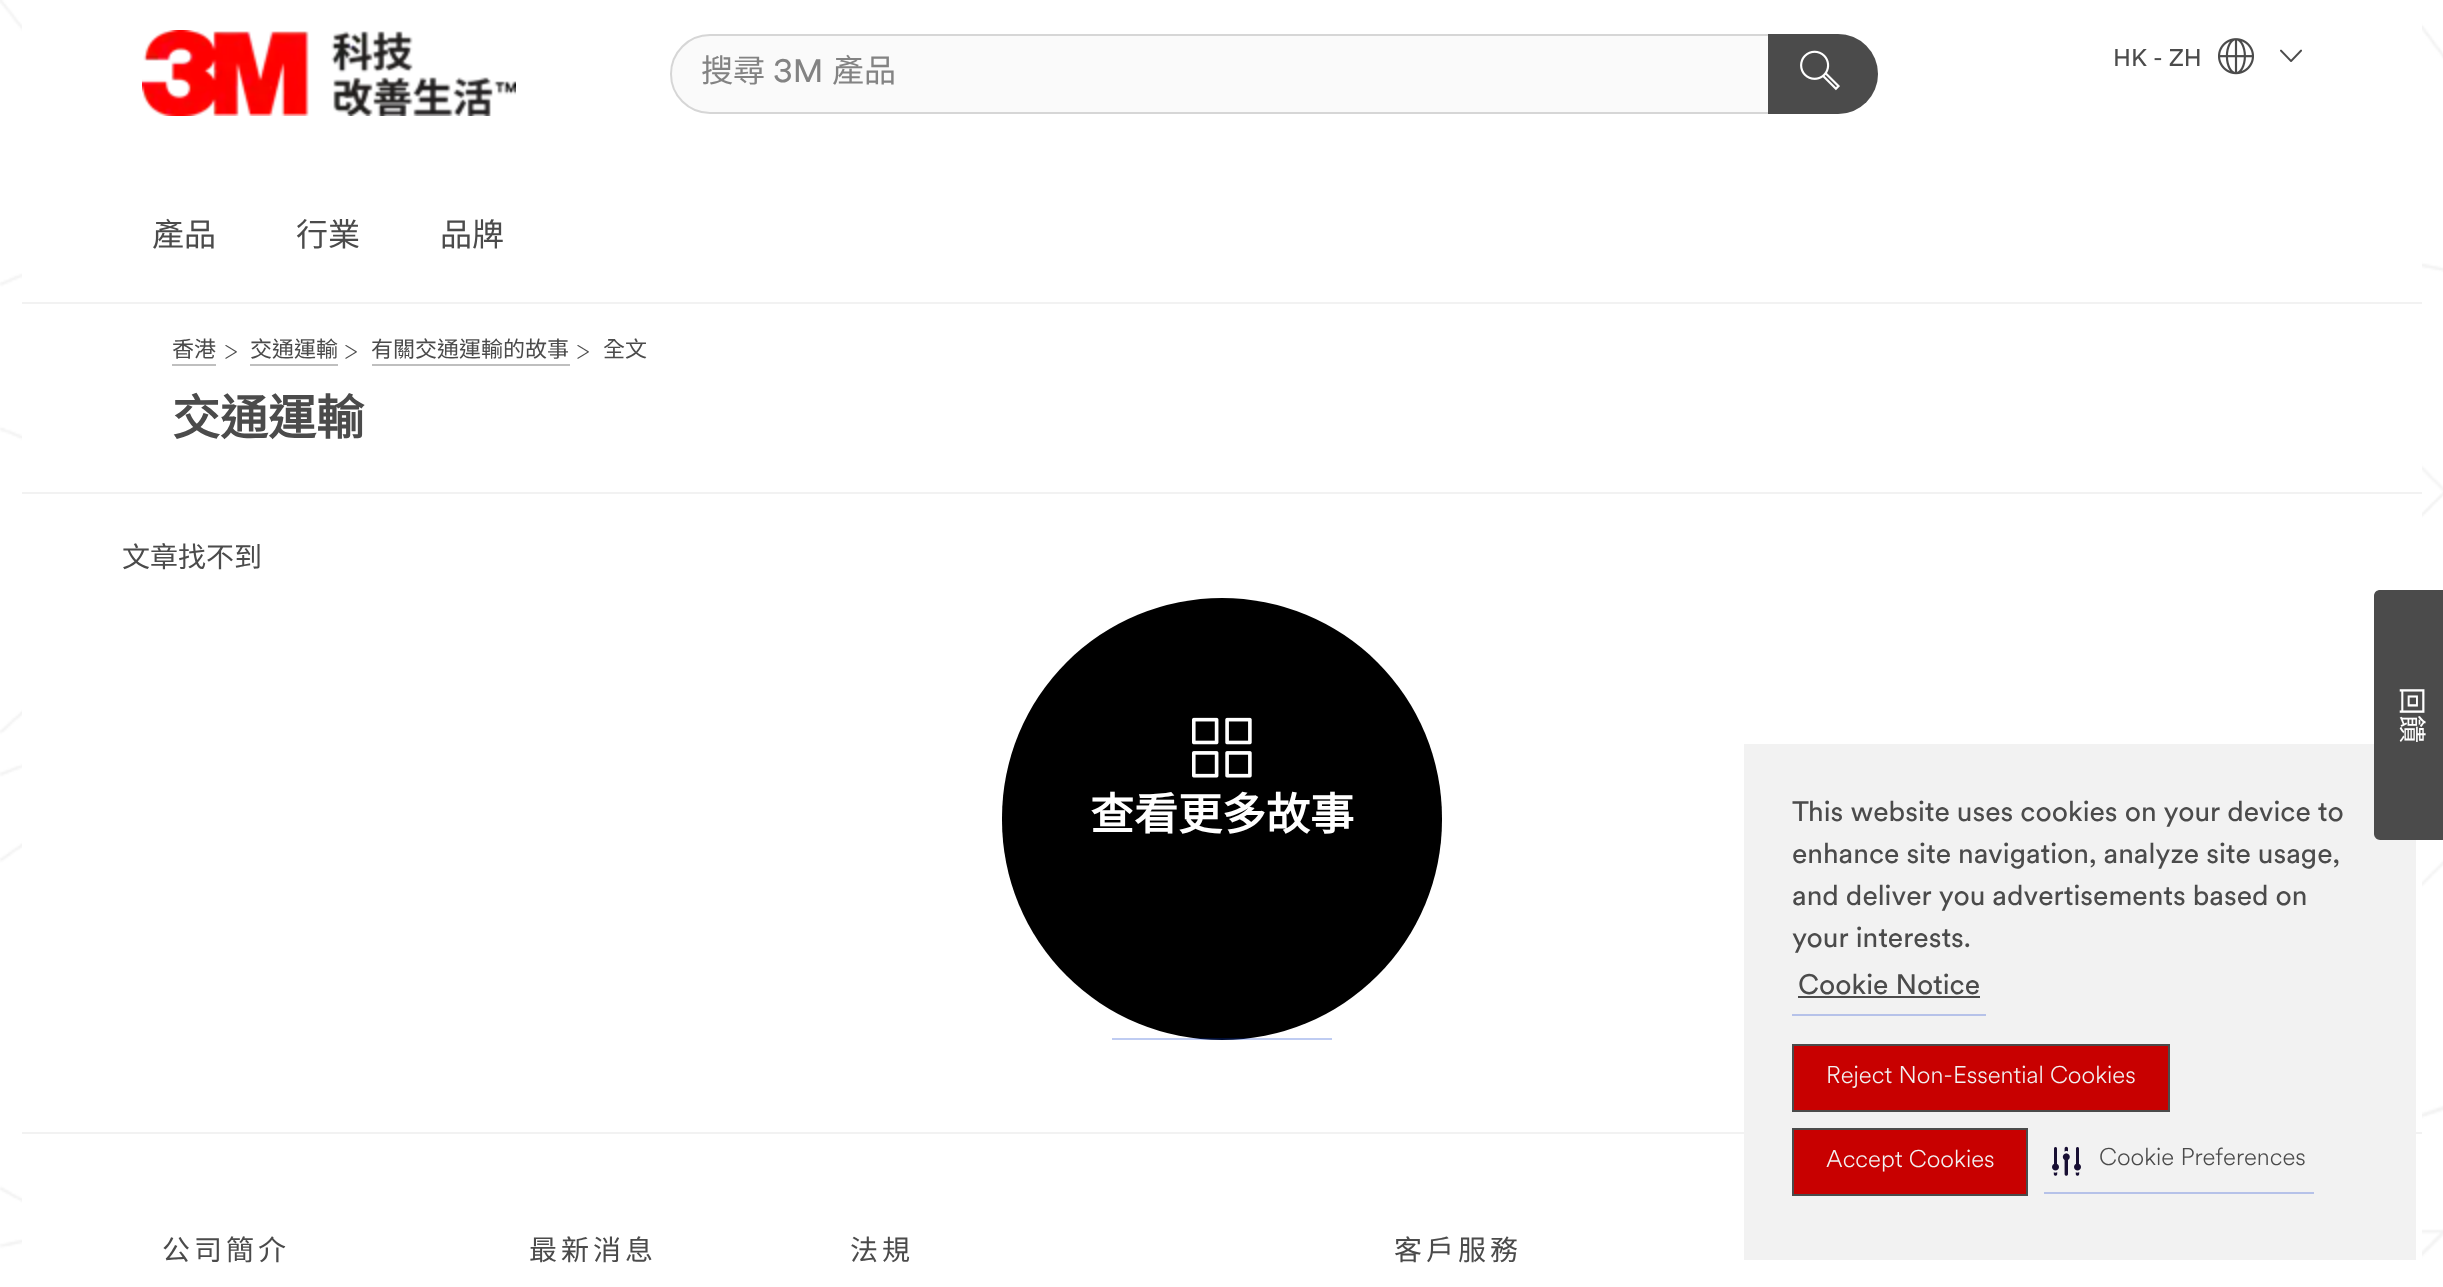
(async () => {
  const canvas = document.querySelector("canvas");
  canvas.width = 2443;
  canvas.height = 1287;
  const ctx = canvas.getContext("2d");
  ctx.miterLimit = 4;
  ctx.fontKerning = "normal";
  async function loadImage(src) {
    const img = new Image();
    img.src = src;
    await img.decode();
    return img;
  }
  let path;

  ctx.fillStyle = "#ffffff";
  ctx.fillRect(0, 0, 2443, 1287);
  ctx.drawImage(await loadImage("img/1.png"), 0, 0, 2443, 1259);
  ctx.fillRect(22, 0, 2400, 1259);
  ctx.fillStyle = "#f2f2f2";
  ctx.fillRect(22, 302, 2400, 2);
  ctx.drawImage(await loadImage("img/2.png"), 2218, 38, 36, 37);
  ctx.drawImage(await loadImage("img/3.png"), 2280, 49, 22, 13);
  ctx.drawImage(await loadImage("img/4.png"), 142, 30, 374, 86);
  ctx.fillStyle = "#fafafa";
  ctx.beginPath();
  ctx.roundRect(671, 35, 1206, 78, 39);
  ctx.fill();
  ctx.strokeStyle = "#d6d6d6";
  ctx.lineWidth = 2;
  ctx.stroke();
  ctx.fillStyle = "#4b4b4b";
  ctx.beginPath();
  ctx.roundRect(1768, 34, 110, 80, [0, 40, 40, 0]);
  ctx.fill();
  ctx.drawImage(await loadImage("img/5.png"), 1800, 50, 40, 41);
  ctx.fillStyle = "#f2f2f2";
  ctx.fillRect(22, 492, 2400, 2);
  ctx.fillStyle = "#bfbfbf";
  ctx.fillRect(172, 364, 44, 2);
  ctx.drawImage(await loadImage("img/6.png"), 225, 345, 12, 14);
  ctx.fillRect(250, 364, 88, 2);
  ctx.drawImage(await loadImage("img/6.png"), 345, 345, 12, 14);
  ctx.fillRect(372, 364, 198, 2);
  ctx.drawImage(await loadImage("img/6.png"), 577, 345, 12, 14);
  ctx.fillStyle = "#000000";
  ctx.beginPath();
  ctx.roundRect(1002, 598, 440, 442, 220);
  ctx.fill();
  ctx.fillStyle = "rgba(0, 51, 204, 0.25)";
  ctx.fillRect(1112, 1038, 220, 2);
  ctx.drawImage(await loadImage("img/7.png"), 1192, 717, 60, 61);
  ctx.fillStyle = "#f2f2f2";
  ctx.fillRect(22, 1132, 2400, 2);
  ctx.fillRect(1744, 744, 672, 516);
  ctx.fillStyle = "#4b4b4b";
  path = new Path2D("M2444 590V840H2380C2377 840 2374 837 2374 834V596C2374 592 2377 590 2380 590Z");
  ctx.fill(path);
  ctx.fillStyle = "#b6c2e9";
  ctx.fillRect(1792, 1014, 194, 2);
  ctx.fillStyle = "#4b4b4b";
  ctx.fillRect(1798, 996, 182, 2);
  ctx.fillStyle = "#c80000";
  ctx.beginPath();
  ctx.rect(1793, 1045, 376, 66);
  ctx.fill();
  ctx.strokeStyle = "#4b4b4b";
  ctx.stroke();
  ctx.beginPath();
  ctx.rect(1793, 1129, 234, 66);
  ctx.fill();
  ctx.stroke();
  ctx.fillStyle = "#b6c2e9";
  ctx.fillRect(2044, 1192, 270, 2);
  ctx.drawImage(await loadImage("img/8.png"), 2052, 1146, 29, 30);
  ctx.font = "24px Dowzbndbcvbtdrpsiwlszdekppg";
  ctx.fillStyle = "#4b4b4b";
  ctx.fillText("HK - ZH", 2113, 66);
  ctx.font = "32px Noto Sans CJK HK";
  for (const [text, x, y] of [
    ["產品", 152, 246],
    ["行業", 296, 246],
    ["品牌", 440, 246],
  ]) {
    ctx.fillText(text, x, y);
  }
  ctx.fillStyle = "#838383";
  ctx.fillText("搜尋", 701, 82);
  ctx.font = "32px Dowzbndbcvbtdrpsiwlszdekppg";
  ctx.fillText("3M", 773, 82);
  ctx.font = "32px Noto Sans CJK HK";
  ctx.fillText("產品", 832, 82);
  ctx.font = "22px Noto Sans CJK HK";
  ctx.fillStyle = "#4b4b4b";
  for (const [text, x, y] of [
    ["香港", 172, 357],
    ["交通運輸", 250, 357],
    ["有關交通運輸的故事", 371, 357],
    ["全文", 603, 357],
  ]) {
    ctx.fillText(text, x, y);
  }
  ctx.font = "bold 48px Noto Sans CJK HK";
  ctx.fillText("交通運輸", 172, 435);
  ctx.font = "28px Noto Sans CJK HK";
  ctx.fillText("文章找不到", 122, 567);
  ctx.font = "bold 44px Noto Sans CJK HK";
  ctx.fillStyle = "#ffffff";
  ctx.fillText("查看更多故事", 1090, 830);
  ctx.letterSpacing = "4px";
  ctx.font = "28px Noto Sans CJK HK";
  ctx.fillStyle = "#4b4b4b";
  for (const [text, x, y] of [
    ["公司簡介", 162, 1260],
    ["最新消息", 529, 1260],
    ["法規", 850, 1260],
    ["客戶服務", 1394, 1260],
  ]) {
    ctx.fillText(text, x, y);
  }
  ctx.letterSpacing = "0px";
  ctx.fillStyle = "#ffffff";
  ctx.save();
  ctx.translate(2402, 687);
  ctx.rotate(90 * Math.PI / 180);
  ctx.fillText("回饋", 0, 0);
  ctx.restore();
  ctx.font = "28px Dowzbndbcvbtdrpsiwlszdekppg";
  ctx.fillStyle = "#4b4b4b";
  for (const [text, x, y] of [
    ["This website uses cookies on your device to", 1792, 821],
    ["enhance site navigation, analyze site usage,", 1792, 863],
    ["and deliver you advertisements based on", 1792, 905],
    ["your interests.", 1792, 947],
    ["Cookie Notice", 1798, 994],
  ]) {
    ctx.fillText(text, x, y);
  }
  ctx.font = "300 24px '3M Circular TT'";
  ctx.fillStyle = "#f2f2f2";
  ctx.fillText("Reject Non-Essential Cookies", 1826, 1083);
  ctx.fillText("Accept Cookies", 1826, 1167);
  ctx.fillStyle = "#4b4b4b";
  ctx.fillText("Cookie Preferences", 2099, 1165);
})();
